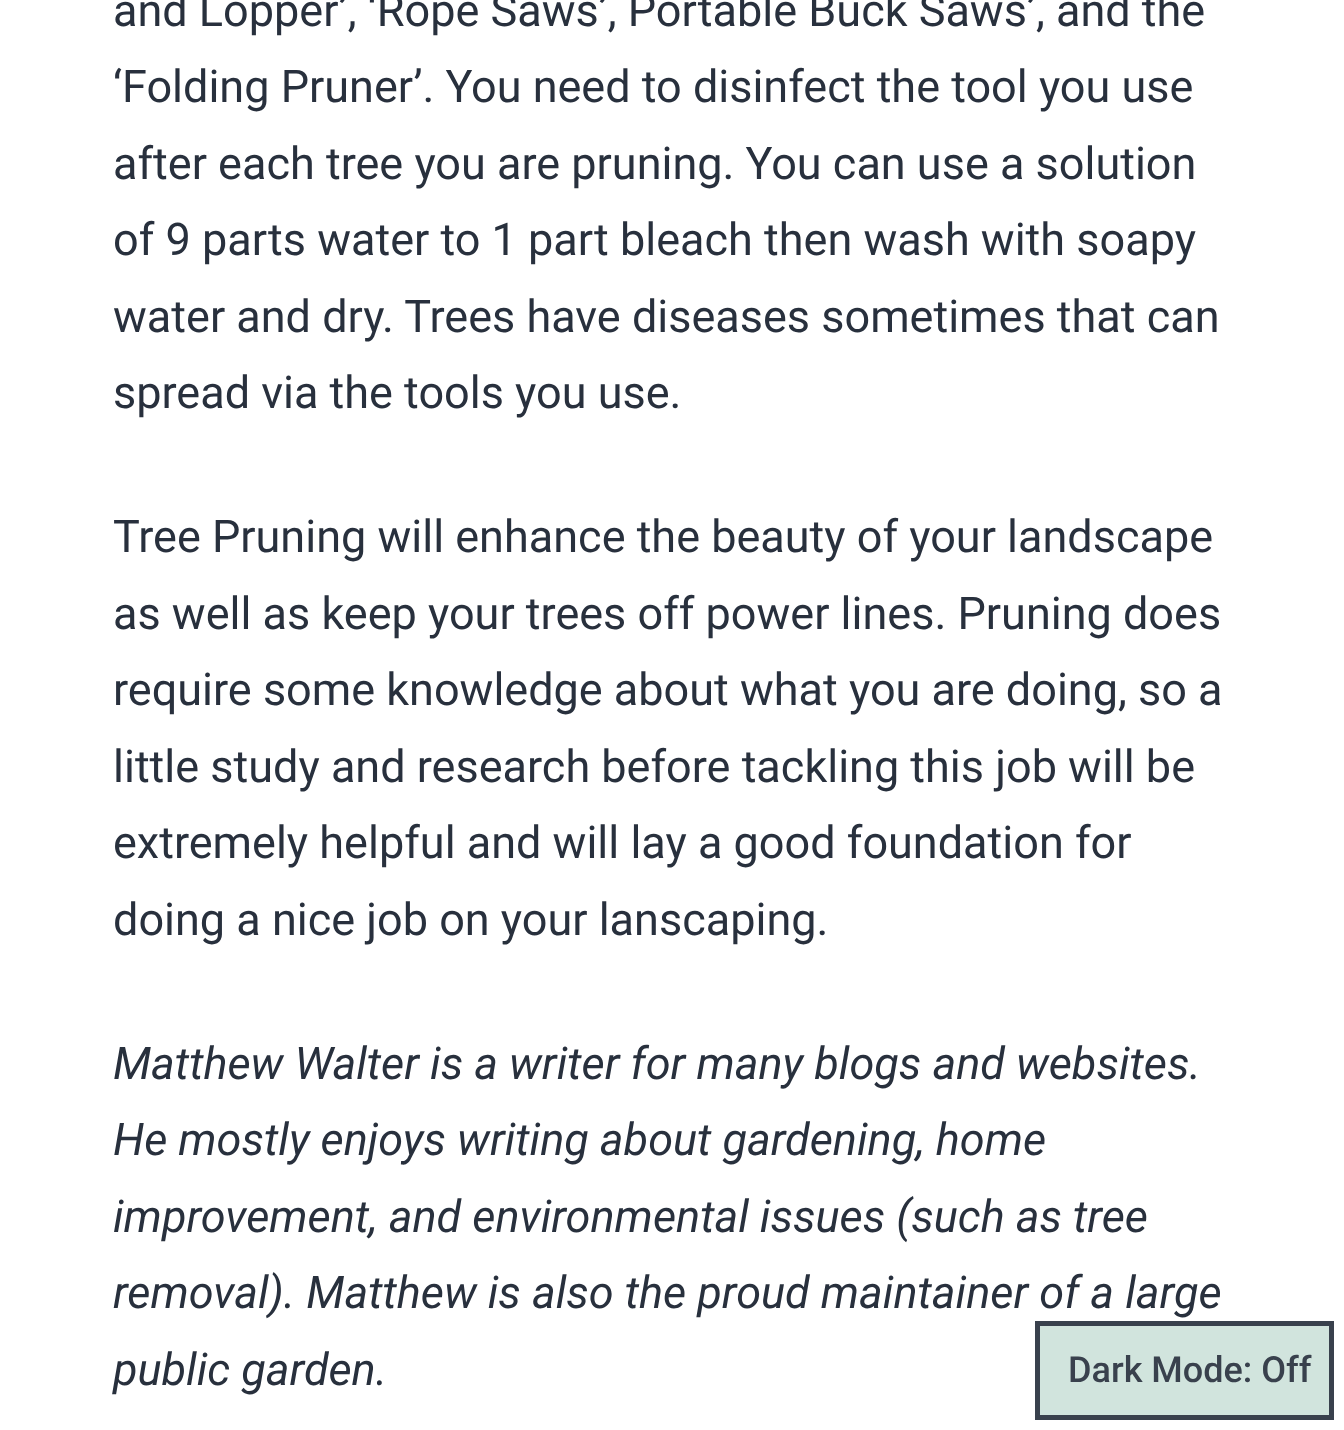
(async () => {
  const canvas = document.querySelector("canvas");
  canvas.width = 1344;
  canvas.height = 1430;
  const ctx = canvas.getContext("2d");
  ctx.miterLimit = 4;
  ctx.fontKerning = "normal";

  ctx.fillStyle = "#ffffff";
  ctx.fillRect(0, 0, 1344, 1430);
  ctx.fillStyle = "#d1e4dd";
  ctx.beginPath();
  ctx.rect(1037.5, 1323.5, 294, 94);
  ctx.fill();
  ctx.strokeStyle = "#39414d";
  ctx.lineWidth = 5;
  ctx.stroke();
  ctx.font = "45px Roboto";
  ctx.fillStyle = "#28303d";
  for (const [text, x, y] of [
    ["and Lopper’, ‘Rope Saws’, Portable Buck Saws’, and the", 113, 26],
    ["‘Folding Pruner’. You need to disinfect the tool you use", 113, 102],
    ["after each tree you are pruning. You can use a solution", 113, 179],
    ["of 9 parts water to 1 part bleach then wash with soapy", 113, 255],
    ["water and dry. Trees have diseases sometimes that can", 113, 332],
    ["spread via the tools you use.", 113, 408],
    ["Tree Pruning will enhance the beauty of your landscape", 113, 552],
    ["as well as keep your trees off power lines. Pruning does", 113, 629],
    ["require some knowledge about what you are doing, so a", 113, 705],
    ["little study and research before tackling this job will be", 113, 782],
    ["extremely helpful and will lay a good foundation for", 113, 858],
    ["doing a nice job on your lanscaping.", 113, 935],
  ]) {
    ctx.fillText(text, x, y);
  }
  ctx.font = "italic 45px Roboto";
  for (const [text, x, y] of [
    ["Matthew Walter is a writer for many blogs and websites.", 113, 1079],
    ["He mostly enjoys writing about gardening, home", 113, 1155],
    ["improvement, and environmental issues (such as tree", 113, 1232],
    ["removal). Matthew is also the proud maintainer of a large", 113, 1308],
    ["public garden.", 113, 1385],
  ]) {
    ctx.fillText(text, x, y);
  }
  ctx.font = "500 36px Roboto";
  ctx.fillStyle = "#39414d";
  ctx.fillText("Dark Mode: Off", 1068, 1382);
})();
